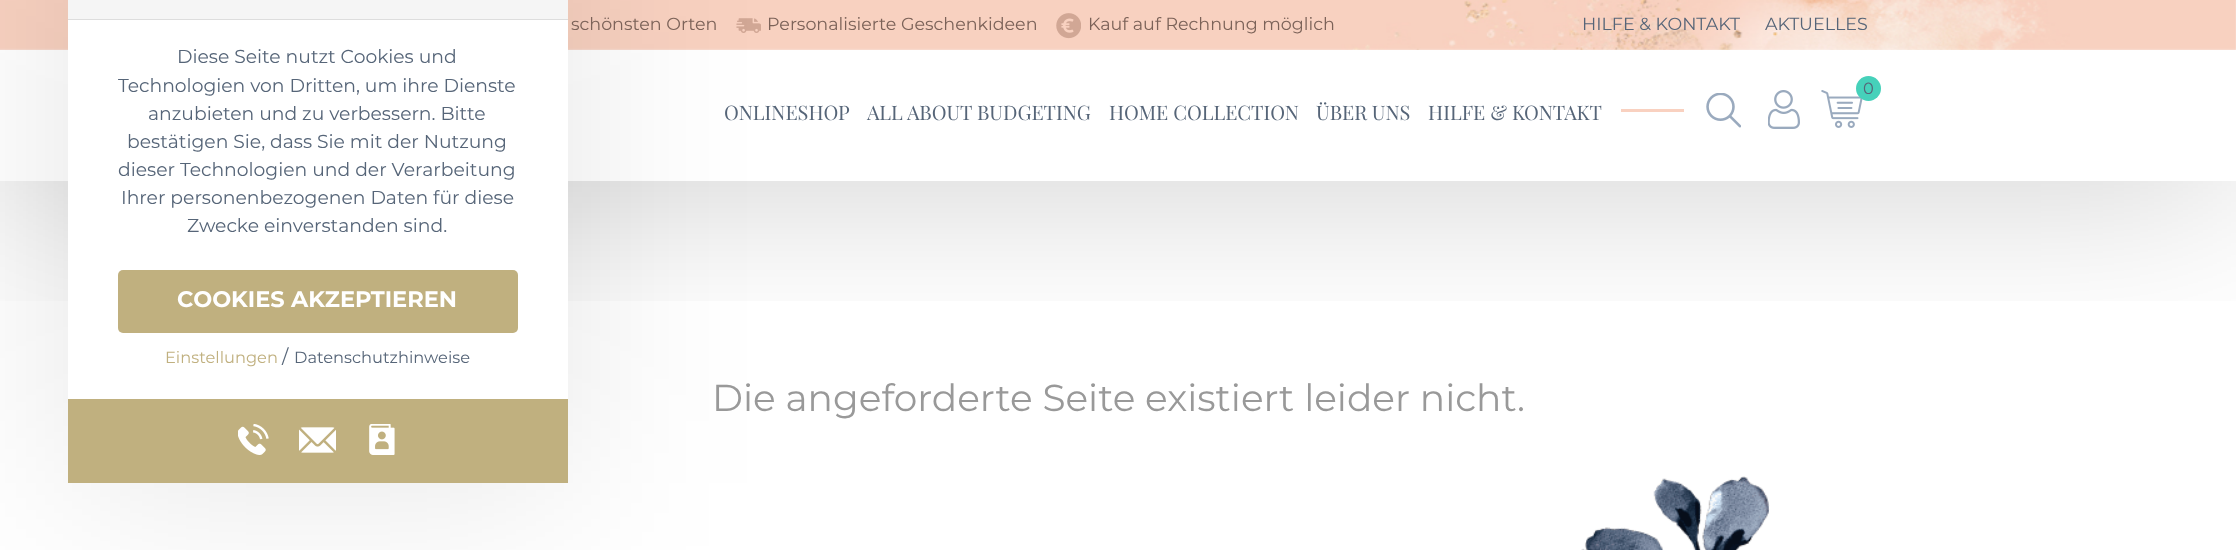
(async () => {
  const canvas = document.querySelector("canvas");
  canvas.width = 2236;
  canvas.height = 550;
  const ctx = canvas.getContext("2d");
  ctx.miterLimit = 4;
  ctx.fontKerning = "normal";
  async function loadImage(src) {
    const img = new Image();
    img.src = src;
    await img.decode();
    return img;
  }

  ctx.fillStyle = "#ffffff";
  ctx.fillRect(0, 0, 2236, 550);
  ctx.save();
  ctx.beginPath();
  ctx.rect(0, 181, 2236, 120);
  ctx.clip();
  ctx.fillStyle = "rgba(0, 0, 0, 0.2)";
  ctx.filter = "blur(94px)";
  ctx.beginPath();
  ctx.rect(0, 0, 2236, 181);
  ctx.fill();
  ctx.filter = "none";
  ctx.restore();
  ctx.drawImage(await loadImage("img/4.png"), 0, 0, 2236, 50);
  ctx.drawImage(await loadImage("img/5.png"), 736, 18, 25, 15);
  ctx.fillStyle = "rgba(0, 0, 0, 0.1)";
  ctx.filter = "blur(94px)";
  ctx.beginPath();
  ctx.rect(68, -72, 500, 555);
  ctx.fill();
  ctx.filter = "none";
  for (const [x, y, w, h, color] of [
    [68, 20, 500, 379, "#ffffff"],
    [68, 0, 500, 19, "#f5f5f5"],
    [68, 19, 500, 1, "#dddddd"],
  ]) {
    ctx.fillStyle = color;
    ctx.fillRect(x, y, w, h);
  }
  ctx.fillStyle = "#c0b07f";
  ctx.beginPath();
  ctx.roundRect(118, 270, 400, 63, 5);
  ctx.fill();
  ctx.fillRect(68, 399, 500, 84);
  ctx.drawImage(await loadImage("img/1.png"), 238, 424, 31, 31);
  ctx.drawImage(await loadImage("img/2.png"), 299, 427, 37, 26);
  ctx.drawImage(await loadImage("img/3.png"), 369, 424, 26, 31);
  ctx.drawImage(await loadImage("img/6.png"), 1056, 13, 25, 26);
  ctx.drawImage(await loadImage("img/7.png"), 1821, 90, 42, 38);
  ctx.fillStyle = "#46d1ba";
  ctx.beginPath();
  ctx.arc(1868.5, 88.5, 12.5, 0, Math.PI * 2);
  ctx.fill();
  ctx.fillStyle = "#f9d1c0";
  ctx.fillRect(1621, 109, 63, 3);
  ctx.drawImage(await loadImage("img/8.png"), 1706, 93, 35, 35);
  ctx.drawImage(await loadImage("img/9.png"), 1768, 90, 32, 39);
  ctx.drawImage(await loadImage("img/10.png"), 1581, 476, 189, 74);
  ctx.font = "18.75px Montserrat";
  ctx.fillStyle = "#566578";
  for (const [text, x, y] of [
    ["Diese Seite nutzt Cookies und", 177, 63],
    ["Technologien von Dritten, um ihre Dienste", 118, 92],
    ["anzubieten und zu verbessern. Bitte", 148, 120],
    ["bestätigen Sie, dass Sie mit der Nutzung", 127, 148],
    ["dieser Technologien und der Verarbeitung", 118, 176],
    ["Ihrer personenbezogenen Daten für diese", 121, 204],
    ["Zwecke einverstanden sind.", 187, 232],
  ]) {
    ctx.fillText(text, x, y);
  }
  ctx.font = "bold 22.5px Montserrat";
  ctx.fillStyle = "#ffffff";
  ctx.fillText("COOKIES AKZEPTIEREN", 177, 307);
  ctx.font = "16.25px Montserrat";
  ctx.fillStyle = "#c0b07f";
  ctx.fillText("Einstellungen", 165, 363);
  ctx.font = "18.75px Montserrat";
  ctx.fillStyle = "#566578";
  ctx.fillText("/", 282, 363);
  ctx.font = "16.25px Montserrat";
  ctx.fillText("Datenschutzhinweise", 294, 363);
  ctx.font = "17.5px Montserrat";
  ctx.fillStyle = "#7b6258";
  for (const [text, x, y] of [
    ["schönsten Orten", 571, 30],
    ["Personalisierte Geschenkideen", 767, 30],
    ["Kauf auf Rechnung möglich", 1088, 30],
  ]) {
    ctx.fillText(text, x, y);
  }
  ctx.fillStyle = "#566578";
  ctx.fillText("HILFE & KONTAKT", 1582, 30);
  ctx.fillText("AKTUELLES", 1765, 30);
  ctx.font = "16.25px Montserrat";
  ctx.fillText("0", 1863, 94);
  ctx.font = "20px Playfair Display";
  for (const [text, x, y] of [
    ["ONLINESHOP", 724, 120],
    ["ALL ABOUT BUDGETING", 867, 120],
    ["HOME COLLECTION", 1109, 120],
    ["ÜBER UNS", 1316, 120],
    ["HILFE & KONTAKT", 1428, 120],
  ]) {
    ctx.fillText(text, x, y);
  }
  ctx.font = "37.5px Montserrat";
  ctx.fillStyle = "#999999";
  ctx.fillText("Die angeforderte Seite existiert leider nicht.", 712, 411);
})();
